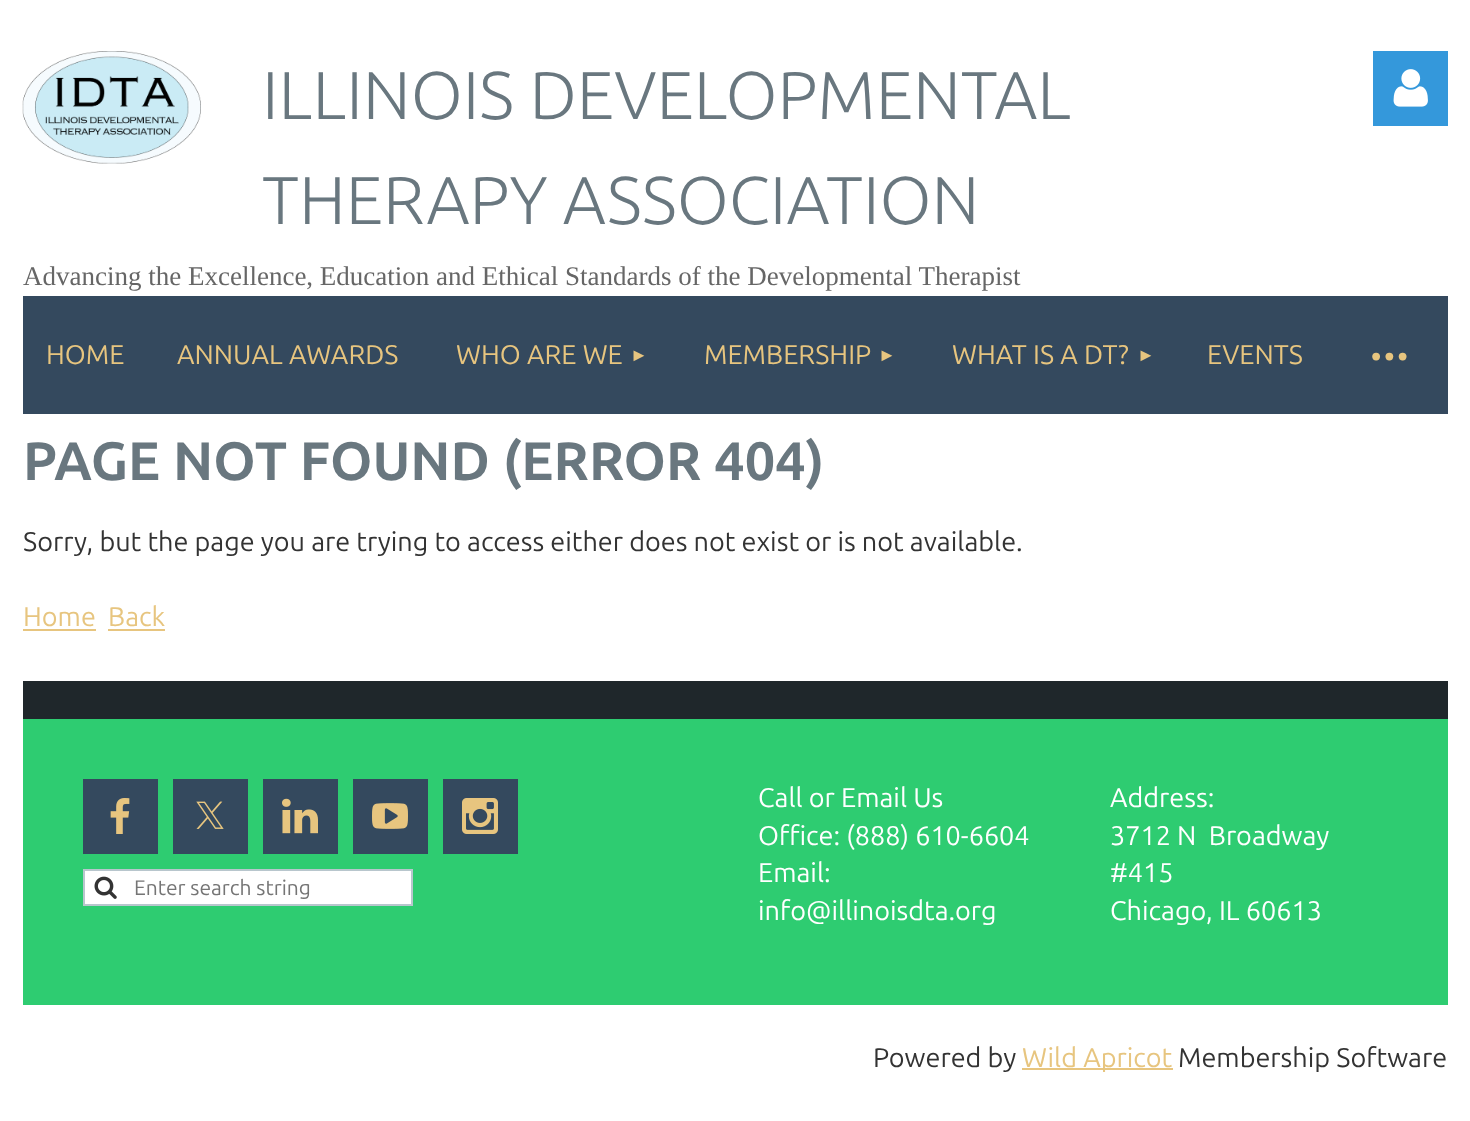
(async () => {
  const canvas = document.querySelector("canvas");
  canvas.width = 1470;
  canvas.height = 1121;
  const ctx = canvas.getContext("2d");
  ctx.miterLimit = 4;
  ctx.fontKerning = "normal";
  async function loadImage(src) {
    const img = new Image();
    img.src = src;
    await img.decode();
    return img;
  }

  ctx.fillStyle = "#ffffff";
  ctx.fillRect(0, 0, 1470, 1121);
  ctx.drawImage(await loadImage("img/1.png"), 22, 51, 179, 113);
  ctx.fillStyle = "#3498db";
  ctx.fillRect(1373, 51, 75, 75);
  ctx.drawImage(await loadImage("img/2.png"), 1393, 69, 35, 38);
  for (const [x, y, w, h, color] of [
    [23, 296, 1425, 118, "#34495e"],
    [23, 629, 73, 2, "#e7c57f"],
    [108, 629, 57, 2, "#e7c57f"],
    [23, 681, 1425, 38, "#1f272b"],
    [23, 719, 1425, 286, "#2ecc71"],
    [83, 779, 75, 75, "#34495e"],
  ]) {
    ctx.fillStyle = color;
    ctx.fillRect(x, y, w, h);
  }
  ctx.drawImage(await loadImage("img/3.png"), 110, 798, 20, 36);
  ctx.fillRect(173, 779, 75, 75);
  ctx.drawImage(await loadImage("img/4.png"), 196, 801, 28, 28);
  ctx.fillRect(263, 779, 75, 75);
  ctx.drawImage(await loadImage("img/5.png"), 282, 798, 36, 36);
  ctx.fillRect(353, 779, 75, 75);
  ctx.drawImage(await loadImage("img/6.png"), 372, 803, 36, 26);
  ctx.fillRect(443, 779, 75, 75);
  ctx.drawImage(await loadImage("img/7.png"), 462, 798, 36, 36);
  ctx.fillStyle = "#ffffff";
  ctx.beginPath();
  ctx.rect(84, 870, 328, 35);
  ctx.fill();
  ctx.strokeStyle = "#b8c6cd";
  ctx.lineWidth = 2;
  ctx.stroke();
  ctx.drawImage(await loadImage("img/8.png"), 94, 876, 23, 23);
  ctx.fillStyle = "#e7c57f";
  ctx.fillRect(1022, 1068, 151, 2);
  ctx.font = "300 67.5px Ubuntu";
  ctx.fillStyle = "#69777f";
  ctx.fillText("ILLINOIS DEVELOPMENTAL", 262, 119);
  ctx.fillText("THERAPY ASSOCIATION", 262, 224);
  ctx.font = "27px Liberation Serif";
  ctx.fillStyle = "#666666";
  ctx.fillText("Advancing the Excellence, Education and Ethical Standards of the Developmental Therapist", 23, 285);
  ctx.font = "27px Ubuntu";
  ctx.fillStyle = "#e7c57f";
  for (const [text, x, y] of [
    ["HOME", 46, 364],
    ["ANNUAL AWARDS", 177, 364],
    ["WHO ARE WE", 456, 364],
  ]) {
    ctx.fillText(text, x, y);
  }
  ctx.font = "18px Liberation Sans";
  ctx.fillText("►", 630, 361);
  ctx.font = "27px Ubuntu";
  ctx.fillText("MEMBERSHIP", 704, 364);
  ctx.font = "18px Liberation Sans";
  ctx.fillText("►", 878, 361);
  ctx.font = "27px Ubuntu";
  ctx.fillText("WHAT IS A DT?", 952, 364);
  ctx.font = "18px Liberation Sans";
  ctx.fillText("►", 1137, 361);
  ctx.font = "27px Ubuntu";
  ctx.fillText("EVENTS", 1207, 364);
  ctx.letterSpacing = "-3px";
  ctx.font = "66px Ubuntu";
  ctx.fillText("···", 1368, 376);
  ctx.letterSpacing = "0px";
  ctx.font = "bold 54px Ubuntu";
  ctx.fillStyle = "#69777f";
  ctx.fillText("PAGE NOT FOUND (ERROR 404)", 23, 480);
  ctx.font = "27px Ubuntu";
  ctx.fillStyle = "#333333";
  ctx.fillText("Sorry, but the page you are trying to access either does not exist or is not available.", 23, 551);
  ctx.fillStyle = "#e7c57f";
  ctx.fillText("Home", 23, 626);
  ctx.fillText("Back", 108, 626);
  ctx.font = "21px Ubuntu";
  ctx.fillStyle = "#757575";
  ctx.fillText("Enter search string", 134, 895);
  ctx.font = "27px Ubuntu";
  ctx.fillStyle = "#ffffff";
  for (const [text, x, y] of [
    ["Call or Email Us", 758, 807],
    ["Office: (888) 610-6604", 758, 845],
    ["Email:", 758, 882],
    ["info@illinoisdta.org", 758, 920],
    ["Address:", 1110, 807],
    ["3712 N  Broadway", 1110, 845],
    ["#415", 1110, 882],
    ["Chicago, IL 60613", 1110, 920],
  ]) {
    ctx.fillText(text, x, y);
  }
  ctx.fillStyle = "#333333";
  ctx.fillText("Powered by", 873, 1067);
  ctx.fillStyle = "#e7c57f";
  ctx.fillText("Wild Apricot", 1022, 1067);
  ctx.fillStyle = "#333333";
  ctx.fillText("Membership Software", 1178, 1067);
})();
